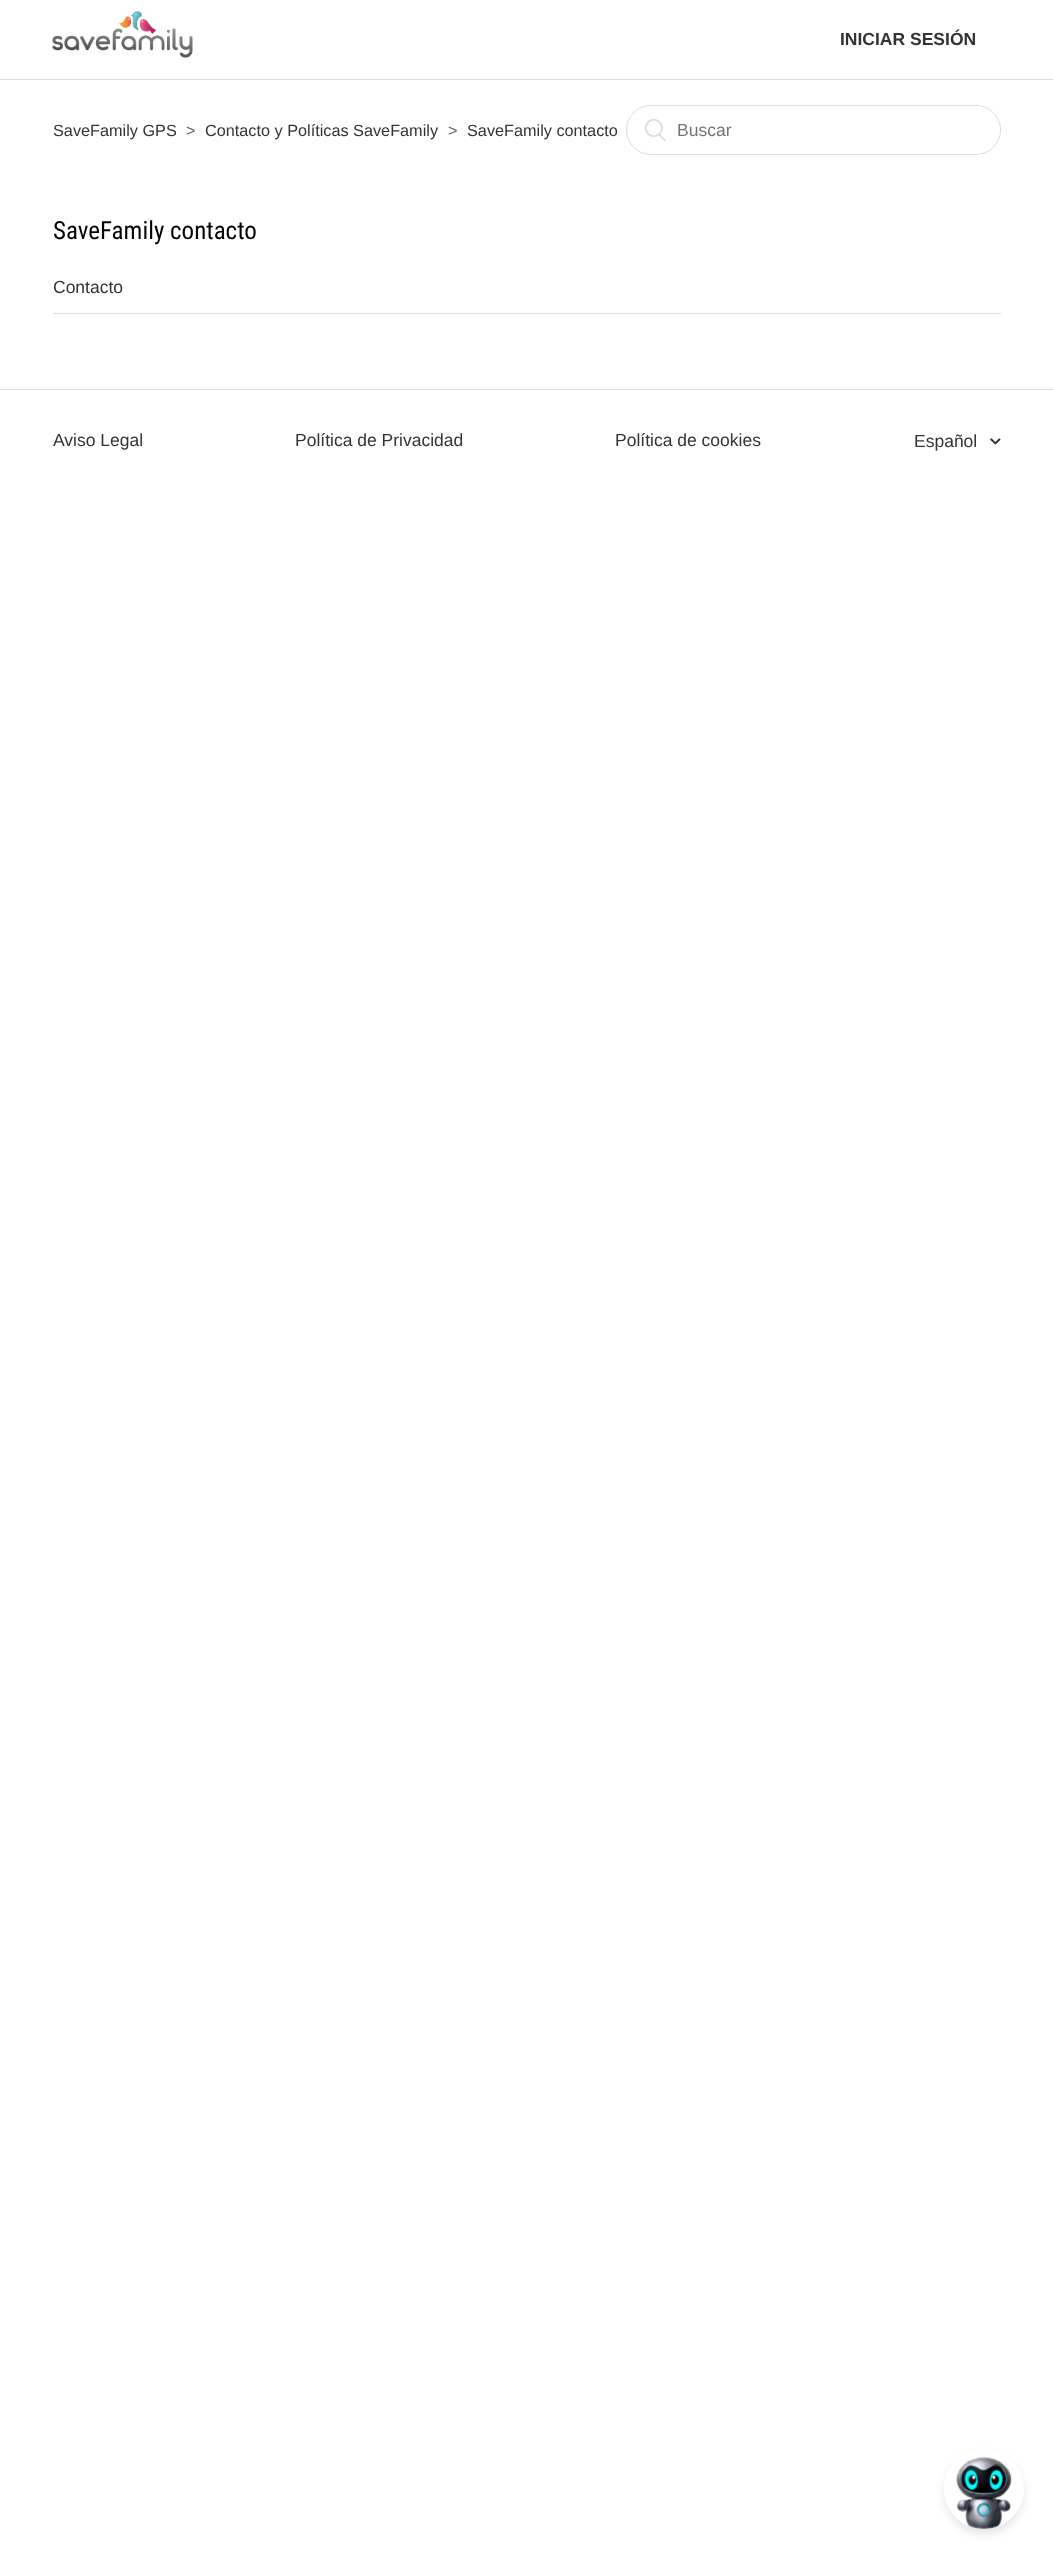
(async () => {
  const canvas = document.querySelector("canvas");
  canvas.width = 1053;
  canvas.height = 2558;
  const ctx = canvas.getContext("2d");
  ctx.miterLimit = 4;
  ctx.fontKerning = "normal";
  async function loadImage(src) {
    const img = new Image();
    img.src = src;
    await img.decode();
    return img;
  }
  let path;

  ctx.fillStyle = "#ffffff";
  ctx.fillRect(0, 0, 1053, 2558);
  ctx.drawImage(await loadImage("img/1.png"), 52, 11, 141, 47);
  ctx.fillStyle = "#dddddd";
  ctx.fillRect(0, 79, 1053, 1);
  ctx.beginPath();
  ctx.roundRect(626.5, 105.5, 374, 49, 24.5);
  ctx.strokeStyle = "#dddddd";
  ctx.stroke();
  ctx.drawImage(await loadImage("img/2.png"), 645, 119, 21, 23);
  ctx.fillRect(53, 313, 948, 1);
  ctx.fillRect(0, 389, 1053, 1);
  ctx.drawImage(await loadImage("img/3.png"), 990, 438, 11, 7);
  ctx.save();
  path = new Path2D("M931 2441H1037V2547H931ZM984 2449C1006 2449 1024 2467 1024 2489C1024 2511 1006 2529 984 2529C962 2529 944 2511 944 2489C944 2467 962 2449 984 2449Z");
  ctx.clip(path, "evenodd");
  ctx.fillStyle = "rgba(0, 0, 0, 0.1)";
  ctx.filter = "blur(4px)";
  ctx.beginPath();
  ctx.roundRect(944, 2454, 80, 80, 40);
  ctx.fill();
  ctx.filter = "none";
  ctx.restore();
  ctx.drawImage(await loadImage("img/4.png"), 955, 2456, 66, 73);
  ctx.font = "bold 17.5px Liberation Sans";
  ctx.fillStyle = "#333333";
  ctx.fillText("INICIAR SESIÓN", 840, 45);
  ctx.font = "16.25px Liberation Sans";
  ctx.fillText("SaveFamily GPS", 53, 136);
  ctx.fillStyle = "#666666";
  ctx.fillText(">", 186, 136);
  ctx.fillStyle = "#333333";
  ctx.fillText("Contacto y Políticas SaveFamily", 205, 136);
  ctx.fillStyle = "#666666";
  ctx.fillText(">", 448, 136);
  ctx.fillStyle = "#333333";
  ctx.fillText("SaveFamily contacto", 467, 136);
  ctx.font = "17.5px Liberation Sans";
  ctx.fillStyle = "#757575";
  ctx.fillText("Buscar", 677, 136);
  ctx.font = "25px Roboto Condensed";
  ctx.fillStyle = "#020202";
  ctx.fillText("SaveFamily contacto", 53, 239);
  ctx.font = "17.5px Liberation Sans";
  ctx.fillStyle = "#333333";
  for (const [text, x, y] of [
    ["Contacto", 53, 293],
    ["Aviso Legal", 53, 446],
    ["Política de Privacidad", 295, 446],
    ["Política de cookies", 615, 446],
    ["Español", 914, 447],
  ]) {
    ctx.fillText(text, x, y);
  }
})();
